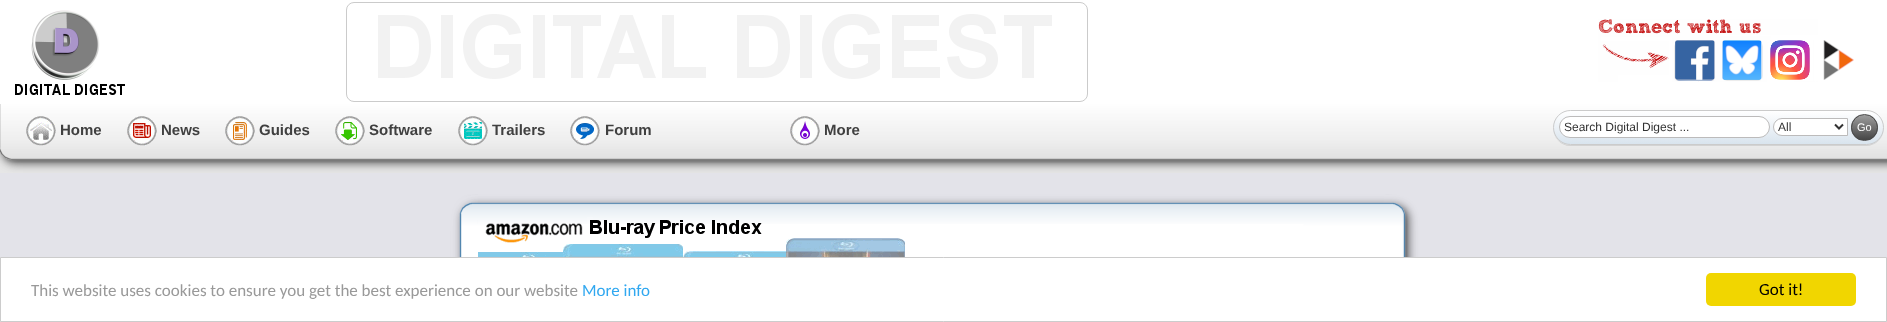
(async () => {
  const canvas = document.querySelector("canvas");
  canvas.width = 1887;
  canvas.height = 322;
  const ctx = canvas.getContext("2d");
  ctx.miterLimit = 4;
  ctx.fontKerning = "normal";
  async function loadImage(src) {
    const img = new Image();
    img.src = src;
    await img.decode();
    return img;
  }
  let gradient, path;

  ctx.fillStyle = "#e3e3e9";
  ctx.fillRect(0, 0, 1887, 322);
  ctx.fillStyle = "#ffffff";
  ctx.fillRect(0, 0, 1887, 104);
  ctx.drawImage(await loadImage("img/1.png"), 15, 10, 110, 85);
  ctx.drawImage(await loadImage("img/2.png"), 378, 14, 674, 65);
  ctx.beginPath();
  ctx.roundRect(346.5, 2.5, 741, 99, 7.5);
  ctx.strokeStyle = "#cbcbcb";
  ctx.stroke();
  ctx.drawImage(await loadImage("img/3.png"), 1598, 19, 256, 63);
  ctx.drawImage(await loadImage("img/4.png"), 0, 104, 23, 69);
  ctx.drawImage(await loadImage("img/5.png"), 23, 104, 1864, 69);
  ctx.drawImage(await loadImage("img/6.png"), 26, 116, 30, 30);
  ctx.drawImage(await loadImage("img/7.png"), 127, 116, 30, 30);
  ctx.drawImage(await loadImage("img/8.png"), 225, 116, 30, 30);
  ctx.drawImage(await loadImage("img/9.png"), 335, 116, 30, 30);
  ctx.drawImage(await loadImage("img/10.png"), 458, 116, 30, 30);
  ctx.drawImage(await loadImage("img/11.png"), 570, 116, 30, 30);
  ctx.drawImage(await loadImage("img/12.png"), 790, 116, 30, 30);
  ctx.fillStyle = "rgba(0, 0, 0, 0.1)";
  path = new Path2D("M1553 128C1553 138 1561 146 1570 146H1866C1876 146 1884 138 1884 128C1884 137 1876 145 1866 145H1570C1561 145 1553 137 1553 128Z");
  ctx.fill(path);
  ctx.save();
  ctx.beginPath();
  ctx.roundRect(1553, 110, 331, 35, 17.5);
  ctx.clip();
  gradient = ctx.createLinearGradient(1554, 111, 1554, 144);
  gradient.addColorStop(0, "#ffffff");
  gradient.addColorStop(1, "#d9e4ee");
  ctx.fillStyle = gradient;
  ctx.fillRect(1553, 111, 331, 33);
  ctx.restore();
  ctx.beginPath();
  ctx.roundRect(1553.5, 110.5, 330, 34, 17);
  ctx.stroke();
  ctx.fillStyle = "#ffffff";
  ctx.beginPath();
  ctx.roundRect(1559.5, 116.5, 210, 21, 10.5);
  ctx.fill();
  ctx.strokeStyle = "#bcbbbb";
  ctx.stroke();
  ctx.beginPath();
  ctx.roundRect(1773.5, 118.5, 74, 17, [8.5, 0, 0, 8.5]);
  ctx.fill();
  ctx.stroke();
  path = new Path2D("M1835 124.5L1839 128.5L1843 124.5");
  ctx.strokeStyle = "#323232";
  ctx.lineWidth = 2;
  ctx.stroke(path);
  ctx.save();
  ctx.beginPath();
  ctx.roundRect(1851, 114, 27, 27, 13.5);
  ctx.clip();
  gradient = ctx.createLinearGradient(1852, 115, 1852, 140);
  gradient.addColorStop(0, "#9e9e9e");
  gradient.addColorStop(1, "#454545");
  ctx.fillStyle = gradient;
  ctx.fillRect(1851, 115, 27, 25);
  ctx.restore();
  ctx.beginPath();
  ctx.arc(1864.5, 127.5, 13, 0, Math.PI * 2);
  ctx.strokeStyle = "#494949";
  ctx.lineWidth = 1;
  ctx.stroke();
  ctx.drawImage(await loadImage("img/13.png"), 450, 194, 987, 63);
  ctx.drawImage(await loadImage("img/14.png"), 478, 220, 427, 37);
  ctx.beginPath();
  ctx.rect(0.5, 257.5, 1886, 64);
  ctx.fill();
  ctx.strokeStyle = "#cccccc";
  ctx.stroke();
  ctx.fillStyle = "#f1d600";
  ctx.beginPath();
  ctx.roundRect(1706, 273, 150, 33, 5);
  ctx.fill();
  ctx.font = "bold 15px Liberation Sans";
  ctx.fillStyle = "#404040";
  for (const [text, x, y] of [
    ["Home", 60, 135],
    ["News", 161, 135],
    ["Guides", 259, 135],
    ["Software", 369, 135],
    ["Trailers", 492, 135],
    ["Forum", 605, 135],
    ["More", 824, 135],
  ]) {
    ctx.fillText(text, x, y);
  }
  ctx.font = "12px Liberation Sans";
  ctx.fillStyle = "#323232";
  ctx.fillText("Search Digital Digest ...", 1564, 131);
  ctx.fillText("All", 1778, 131);
  ctx.font = "11px Liberation Sans";
  ctx.fillStyle = "#ffffff";
  ctx.fillText("Go", 1857, 131);
  ctx.font = "17px Carlito";
  ctx.fillStyle = "#999999";
  ctx.fillText("This website uses cookies to ensure you get the best experience on our website", 31, 296);
  ctx.fillStyle = "#31a8f0";
  ctx.fillText("More info", 582, 296);
  ctx.fillStyle = "#000000";
  ctx.fillText("Got it!", 1759, 295);
})();
